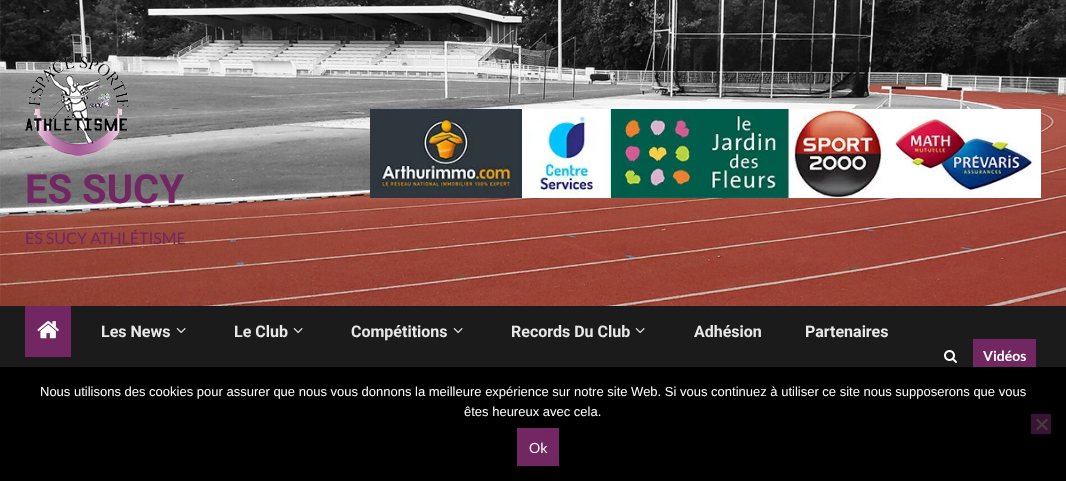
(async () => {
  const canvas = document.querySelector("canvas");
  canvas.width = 1066;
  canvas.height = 481;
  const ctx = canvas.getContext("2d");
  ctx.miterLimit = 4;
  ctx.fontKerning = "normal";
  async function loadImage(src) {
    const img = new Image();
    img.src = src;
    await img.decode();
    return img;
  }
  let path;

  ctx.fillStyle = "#ffffff";
  ctx.fillRect(0, 0, 1066, 481);
  ctx.drawImage(await loadImage("img/1.png"), 0, 0, 1066, 306);
  ctx.drawImage(await loadImage("img/2.png"), 370, 109, 671, 89);
  ctx.drawImage(await loadImage("img/3.png"), 25, 56, 104, 100);
  ctx.fillStyle = "#1b1b1b";
  ctx.fillRect(0, 306, 1066, 61);
  ctx.fillStyle = "#722662";
  ctx.fillRect(25, 306, 46, 51);
  ctx.drawImage(await loadImage("img/4.png"), 37, 321, 22, 18);
  ctx.drawImage(await loadImage("img/5.png"), 176, 328, 10, 6);
  ctx.drawImage(await loadImage("img/5.png"), 293, 328, 10, 6);
  ctx.drawImage(await loadImage("img/5.png"), 453, 328, 10, 6);
  ctx.drawImage(await loadImage("img/5.png"), 635, 328, 10, 6);
  ctx.drawImage(await loadImage("img/6.png"), 944, 350, 13, 13);
  for (const [x, y, w, h, color] of [
    [973, 339, 63, 28, "#722662"],
    [0, 367, 1066, 114, "#000000"],
    [1031, 414, 20, 20, "#391331"],
  ]) {
    ctx.fillStyle = color;
    ctx.fillRect(x, y, w, h);
  }
  ctx.fillStyle = "#404040";
  path = new Path2D("M1046.5 418.5L1048 420L1037.5 430.5L1036 429Z");
  ctx.fill(path);
  path = new Path2D("M1036 420L1037.5 418.5L1048 429L1046.5 430.5Z");
  ctx.fill(path);
  ctx.fillStyle = "#722662";
  ctx.fillRect(517, 428, 42, 38);
  ctx.font = "bold 40px Roboto";
  ctx.fillText("ES SUCY", 25, 203);
  ctx.font = "16px Lato";
  ctx.fillText("ES SUCY ATHLÉTISME", 25, 244);
  ctx.font = "bold 16px Roboto";
  ctx.fillStyle = "#e8e8e8";
  for (const [text, x, y] of [
    ["Les News", 101, 337],
    ["Le Club", 234, 337],
    ["Compétitions", 351, 337],
    ["Records Du Club", 511, 337],
    ["Adhésion", 694, 337],
    ["Partenaires", 805, 337],
  ]) {
    ctx.fillText(text, x, y);
  }
  ctx.font = "bold 14px Lato";
  ctx.fillStyle = "#ffffff";
  ctx.fillText("Vidéos", 983, 361);
  ctx.font = "13px Liberation Sans";
  ctx.fillText("Nous utilisons des cookies pour assurer que nous vous donnons la meilleure expérience sur notre site Web. Si vous continuez à utiliser ce site nous supposerons que vous", 40, 396);
  ctx.fillText("êtes heureux avec cela.", 464, 416);
  ctx.font = "14px Lato";
  ctx.fillText("Ok", 529, 453);
})();
